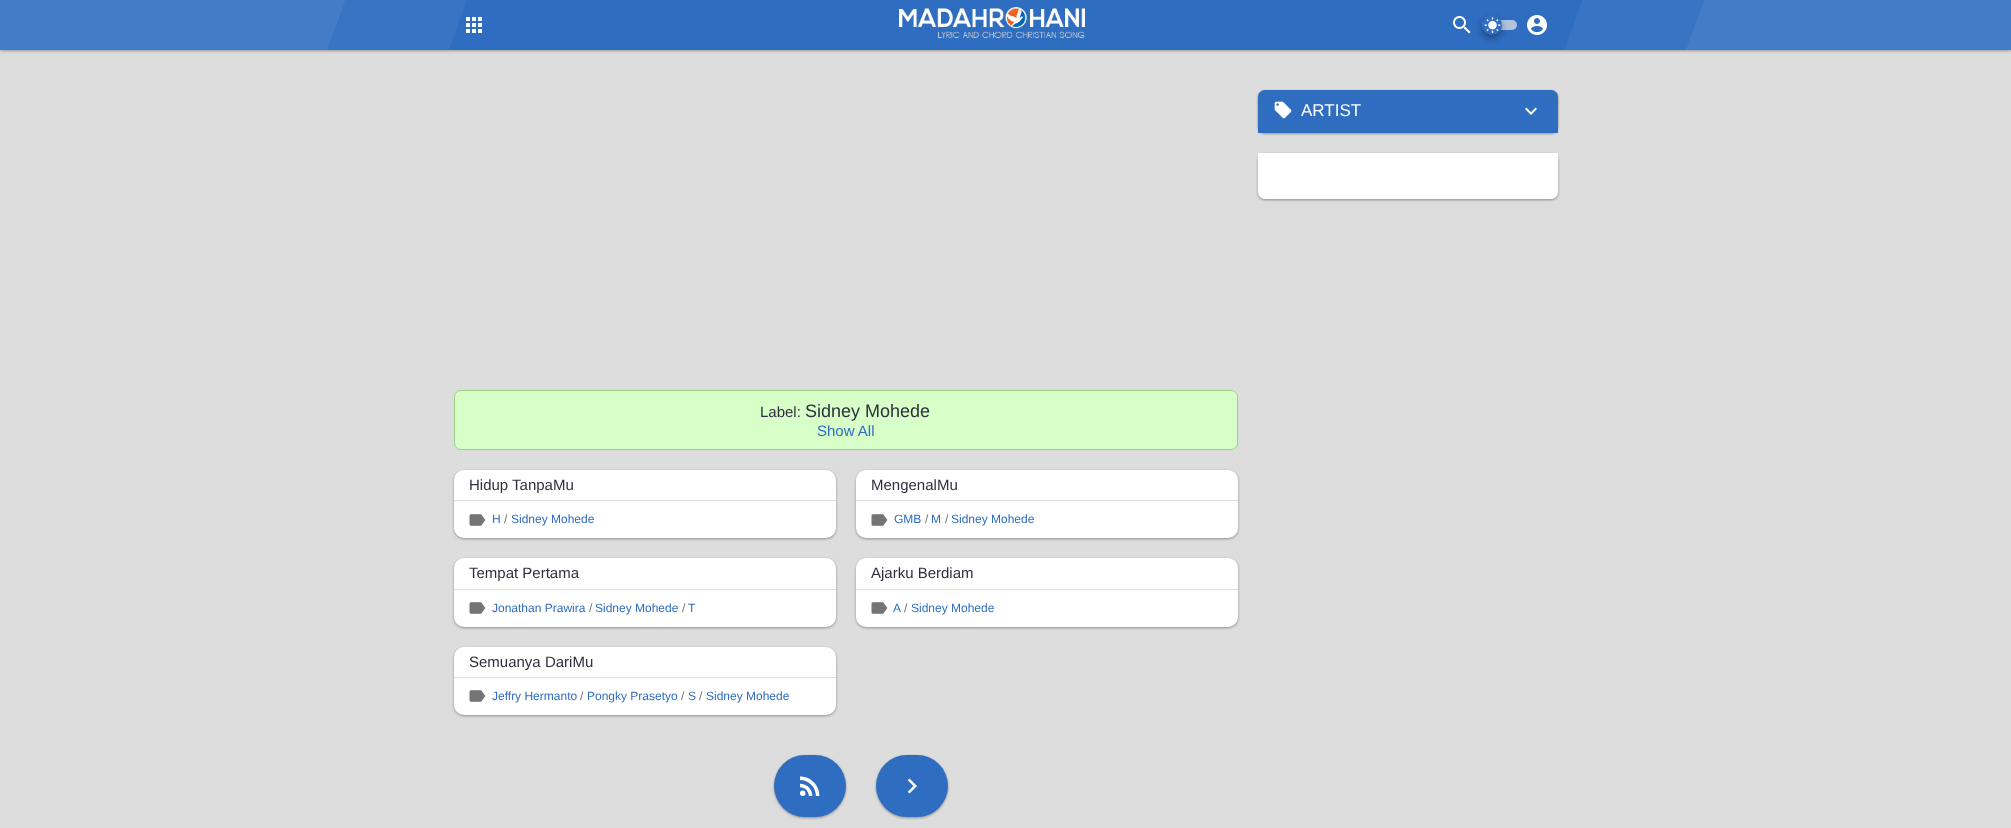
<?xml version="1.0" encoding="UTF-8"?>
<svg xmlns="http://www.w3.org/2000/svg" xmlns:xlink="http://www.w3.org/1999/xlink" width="2011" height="828">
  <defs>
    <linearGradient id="g1" gradientUnits="userSpaceOnUse" x1="110" y1="-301" x2="1901" y2="351"><stop offset="0.16" stop-color="#447cc7" /><stop offset="0.17" stop-color="#447cc7" /><stop offset="0.17" stop-color="#3974c4" /><stop offset="0.23" stop-color="#3974c4" /><stop offset="0.23" stop-color="#2f6dc1" /><stop offset="0.78" stop-color="#2f6dc1" /><stop offset="0.78" stop-color="#3974c4" /><stop offset="0.84" stop-color="#3974c4" /><stop offset="0.84" stop-color="#447cc7" /><stop offset="1" stop-color="#447cc7" /></linearGradient>
  </defs>
  <rect width="100%" height="100%" fill="#dddddd" />
  <rect y="1" width="2011" height="50" fill="#000000" fill-opacity="0.3" filter="blur(1.5px)" />
  <rect width="2011" height="50" fill="url(#g1)" />
  <image x="466" y="17" width="16" height="16" xlink:href="image1.png" />
  <image x="899" y="7" width="186" height="32" xlink:href="image2.png" />
  <image x="1453" y="16" width="18" height="18" xlink:href="image3.png" />
  <rect x="1482" y="20" width="35" height="10" rx="5" fill="#b0c4de" />
  <rect x="1482" y="18" width="20" height="20" rx="10" fill="#000000" fill-opacity="0.23" filter="blur(3px)" />
  <rect x="1482" y="18" width="20" height="20" rx="10" fill="#000000" fill-opacity="0.16" filter="blur(3px)" />
  <circle cx="1492" cy="25" r="10" fill="#2f6dc1" />
  <image x="1484" y="17" width="17" height="16" xlink:href="image4.png" />
  <image x="1527" y="15" width="20" height="20" xlink:href="image5.png" />
  <rect x="1258" y="91" width="300" height="43" rx="7" fill="#000000" fill-opacity="0.24" filter="blur(1px)" />
  <rect x="1258" y="91" width="300" height="43" rx="7" fill="#000000" fill-opacity="0.12" filter="blur(1.5px)" />
  <path d="M 1265 90 h 286 c 4 0 7 3 7 7 v 36 h -300 v -36 c 0 -4 3 -7 7 -7 z" fill="#2f6dc1" />
  <image x="1274" y="101" width="18" height="18" xlink:href="image6.png" />
  <image x="1525" y="107" width="12" height="8" xlink:href="image7.png" />
  <rect x="1258" y="154" width="300" height="46" rx="7" fill="#000000" fill-opacity="0.24" filter="blur(1px)" />
  <rect x="1258" y="154" width="300" height="46" rx="7" fill="#000000" fill-opacity="0.12" filter="blur(1.5px)" />
  <rect x="1258" y="153" width="300" height="46" rx="7" fill="#ffffff" />
  <path d="M 1258 153 h 300 v 36 c 0 5.5 -4.5 10 -10 10 h -280 c -5.5 0 -10 -4.5 -10 -10 z" fill="#ffffff" />
  <rect x="454.5" y="390.5" width="783" height="59" rx="6.5" fill="#d9ffc9" stroke="#9bd084" />
  <rect x="454" y="471" width="382" height="68" rx="10" fill="#000000" fill-opacity="0.24" filter="blur(1px)" />
  <rect x="454" y="471" width="382" height="68" rx="10" fill="#000000" fill-opacity="0.12" filter="blur(1.5px)" />
  <rect x="454" y="470" width="382" height="68" rx="10" fill="#ffffff" />
  <rect x="454" y="500" width="382" height="1" fill="#dddddd" />
  <image x="469" y="514" width="17" height="12" xlink:href="image8.png" />
  <rect x="856" y="471" width="382" height="68" rx="10" fill="#000000" fill-opacity="0.24" filter="blur(1px)" />
  <rect x="856" y="471" width="382" height="68" rx="10" fill="#000000" fill-opacity="0.12" filter="blur(1.5px)" />
  <rect x="856" y="470" width="382" height="68" rx="10" fill="#ffffff" />
  <rect x="856" y="500" width="382" height="1" fill="#dddddd" />
  <image x="871" y="514" width="17" height="12" xlink:href="image8.png" />
  <rect x="454" y="559" width="382" height="69" rx="10" fill="#000000" fill-opacity="0.24" filter="blur(1px)" />
  <rect x="454" y="559" width="382" height="69" rx="10" fill="#000000" fill-opacity="0.12" filter="blur(1.5px)" />
  <rect x="454" y="558" width="382" height="69" rx="10" fill="#ffffff" />
  <rect x="454" y="589" width="382" height="1" fill="#dddddd" />
  <image x="469" y="602" width="17" height="12" xlink:href="image8.png" />
  <rect x="856" y="559" width="382" height="69" rx="10" fill="#000000" fill-opacity="0.24" filter="blur(1px)" />
  <rect x="856" y="559" width="382" height="69" rx="10" fill="#000000" fill-opacity="0.12" filter="blur(1.5px)" />
  <rect x="856" y="558" width="382" height="69" rx="10" fill="#ffffff" />
  <rect x="856" y="589" width="382" height="1" fill="#dddddd" />
  <image x="871" y="602" width="17" height="12" xlink:href="image8.png" />
  <rect x="454" y="648" width="382" height="68" rx="10" fill="#000000" fill-opacity="0.24" filter="blur(1px)" />
  <rect x="454" y="648" width="382" height="68" rx="10" fill="#000000" fill-opacity="0.12" filter="blur(1.5px)" />
  <rect x="454" y="647" width="382" height="68" rx="10" fill="#ffffff" />
  <rect x="454" y="677" width="382" height="1" fill="#dddddd" />
  <image x="469" y="690" width="17" height="12" xlink:href="image8.png" />
  <rect x="774" y="756" width="72" height="62" rx="31" fill="#000000" fill-opacity="0.24" filter="blur(1px)" />
  <rect x="774" y="756" width="72" height="62" rx="31" fill="#000000" fill-opacity="0.12" filter="blur(1.5px)" />
  <rect x="774" y="755" width="72" height="62" rx="31" fill="#2f6dc1" />
  <image x="800" y="776" width="20" height="20" xlink:href="image9.png" />
  <rect x="876" y="756" width="72" height="62" rx="31" fill="#000000" fill-opacity="0.24" filter="blur(1px)" />
  <rect x="876" y="756" width="72" height="62" rx="31" fill="#000000" fill-opacity="0.12" filter="blur(1.5px)" />
  <rect x="876" y="755" width="72" height="62" rx="31" fill="#2f6dc1" />
  <image x="907" y="778" width="10" height="16" xlink:href="image10.png" />
  <text x="1301" y="116" style="font-family: Liberation Sans; font-size: 17px; fill: #ffffff">ARTIST</text>
  <text x="760" y="417" style="font-family: Liberation Sans; font-size: 15px; fill: #2f303f">Label:</text>
  <text x="805" y="417" style="font-family: Liberation Sans; font-size: 18px; fill: #2f303f">Sidney Mohede</text>
  <text x="817" y="436" style="font-family: Liberation Sans; font-size: 15px; fill: #2f6dc1">Show All</text>
  <text x="469" y="490" style="font-family: Liberation Sans; font-size: 15px; fill: #2f303f">Hidup TanpaMu</text>
  <text x="492" y="523" style="font-family: Liberation Sans; font-size: 12px; fill: #2f6dc1">H</text>
  <text x="504" y="523" style="font-family: Liberation Sans; font-size: 12px; fill: #757575">/</text>
  <text x="511" y="523" style="font-family: Liberation Sans; font-size: 12px; fill: #2f6dc1">Sidney Mohede</text>
  <text x="871" y="490" style="font-family: Liberation Sans; font-size: 15px; fill: #2f303f">MengenalMu</text>
  <text x="894" y="523" style="font-family: Liberation Sans; font-size: 12px; fill: #2f6dc1">GMB</text>
  <text x="925" y="523" style="font-family: Liberation Sans; font-size: 12px; fill: #757575">/</text>
  <text x="931" y="523" style="font-family: Liberation Sans; font-size: 12px; fill: #2f6dc1">M</text>
  <text x="945" y="523" style="font-family: Liberation Sans; font-size: 12px; fill: #757575">/</text>
  <text x="951" y="523" style="font-family: Liberation Sans; font-size: 12px; fill: #2f6dc1">Sidney Mohede</text>
  <text x="469" y="578" style="font-family: Liberation Sans; font-size: 15px; fill: #2f303f">Tempat Pertama</text>
  <text x="492" y="612" style="font-family: Liberation Sans; font-size: 12px; fill: #2f6dc1">Jonathan Prawira</text>
  <text x="589" y="612" style="font-family: Liberation Sans; font-size: 12px; fill: #757575">/</text>
  <text x="595" y="612" style="font-family: Liberation Sans; font-size: 12px; fill: #2f6dc1">Sidney Mohede</text>
  <text x="682" y="612" style="font-family: Liberation Sans; font-size: 12px; fill: #757575">/</text>
  <text x="688" y="612" style="font-family: Liberation Sans; font-size: 12px; fill: #2f6dc1">T</text>
  <text x="871" y="578" style="font-family: Liberation Sans; font-size: 15px; fill: #2f303f">Ajarku Berdiam</text>
  <text x="893" y="612" style="font-family: Liberation Sans; font-size: 12px; fill: #2f6dc1">A</text>
  <text x="904" y="612" style="font-family: Liberation Sans; font-size: 12px; fill: #757575">/</text>
  <text x="911" y="612" style="font-family: Liberation Sans; font-size: 12px; fill: #2f6dc1">Sidney Mohede</text>
  <text x="469" y="667" style="font-family: Liberation Sans; font-size: 15px; fill: #2f303f">Semuanya DariMu</text>
  <text x="492" y="700" style="font-family: Liberation Sans; font-size: 12px; fill: #2f6dc1">Jeffry Hermanto</text>
  <text x="580" y="700" style="font-family: Liberation Sans; font-size: 12px; fill: #757575">/</text>
  <text x="587" y="700" style="font-family: Liberation Sans; font-size: 12px; fill: #2f6dc1">Pongky Prasetyo</text>
  <text x="681" y="700" style="font-family: Liberation Sans; font-size: 12px; fill: #757575">/</text>
  <text x="688" y="700" style="font-family: Liberation Sans; font-size: 12px; fill: #2f6dc1">S</text>
  <text x="699" y="700" style="font-family: Liberation Sans; font-size: 12px; fill: #757575">/</text>
  <text x="706" y="700" style="font-family: Liberation Sans; font-size: 12px; fill: #2f6dc1">Sidney Mohede</text>
</svg>
